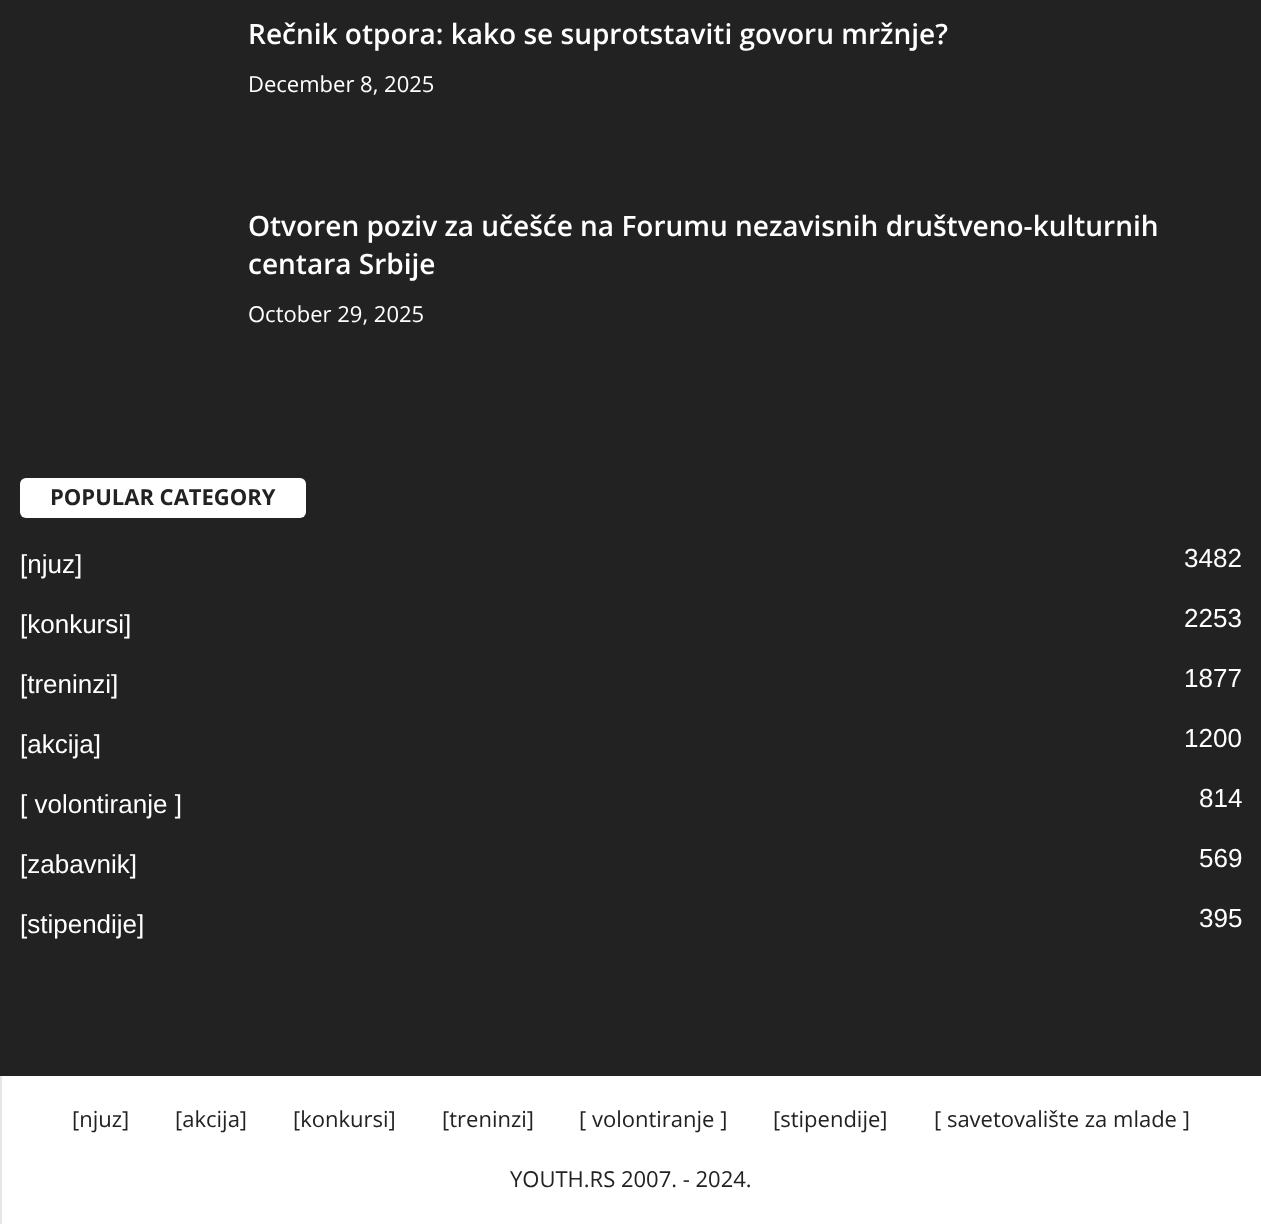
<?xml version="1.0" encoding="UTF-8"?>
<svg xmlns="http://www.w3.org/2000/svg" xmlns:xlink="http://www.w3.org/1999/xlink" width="1261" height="1224">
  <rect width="100%" height="100%" fill="#ffffff" />
  <rect width="1261" height="1076" fill="#222222" />
  <rect x="20" y="478" width="286" height="40" rx="6" fill="#ffffff" />
  <rect y="1076" width="2" height="148" fill="#e6e6e6" />
  <text x="248" y="44" style="font-family: Open Sans; font-size: 28px; font-weight: 600; fill: #ffffff">Rečnik otpora: kako se suprotstaviti govoru mržnje?</text>
  <text x="248" y="92" style="font-family: Open Sans; font-size: 22px; fill: #ffffff">December 8, 2025</text>
  <text x="248" y="236" style="font-family: Open Sans; font-size: 28px; font-weight: 600; fill: #ffffff">Otvoren poziv za učešće na Forumu nezavisnih društveno-kulturnih</text>
  <text x="248" y="274" style="font-family: Open Sans; font-size: 28px; font-weight: 600; fill: #ffffff">centara Srbije</text>
  <text x="248" y="322" style="font-family: Open Sans; font-size: 22px; fill: #ffffff">October 29, 2025</text>
  <text x="50" y="505" style="font-family: Open Sans; font-size: 22px; font-weight: bold; fill: #222222">POPULAR CATEGORY</text>
  <text x="20" y="573" style="font-family: Liberation Sans; font-size: 26px; fill: #ffffff">[njuz]</text>
  <text x="1184" y="567" style="font-family: Liberation Sans; font-size: 26px; fill: #ffffff">3482</text>
  <text x="20" y="633" style="font-family: Liberation Sans; font-size: 26px; fill: #ffffff">[konkursi]</text>
  <text x="1184" y="627" style="font-family: Liberation Sans; font-size: 26px; fill: #ffffff">2253</text>
  <text x="20" y="693" style="font-family: Liberation Sans; font-size: 26px; fill: #ffffff">[treninzi]</text>
  <text x="1184" y="687" style="font-family: Liberation Sans; font-size: 26px; fill: #ffffff">1877</text>
  <text x="20" y="753" style="font-family: Liberation Sans; font-size: 26px; fill: #ffffff">[akcija]</text>
  <text x="1184" y="747" style="font-family: Liberation Sans; font-size: 26px; fill: #ffffff">1200</text>
  <text x="20" y="813" style="font-family: Liberation Sans; font-size: 26px; fill: #ffffff">[ volontiranje ]</text>
  <text x="1199" y="807" style="font-family: Liberation Sans; font-size: 26px; fill: #ffffff">814</text>
  <text x="20" y="873" style="font-family: Liberation Sans; font-size: 26px; fill: #ffffff">[zabavnik]</text>
  <text x="1199" y="867" style="font-family: Liberation Sans; font-size: 26px; fill: #ffffff">569</text>
  <text x="20" y="933" style="font-family: Liberation Sans; font-size: 26px; fill: #ffffff">[stipendije]</text>
  <text x="1199" y="927" style="font-family: Liberation Sans; font-size: 26px; fill: #ffffff">395</text>
  <text x="72" y="1127" style="font-family: Open Sans; font-size: 22px; fill: #222222">[njuz]</text>
  <text x="175" y="1127" style="font-family: Open Sans; font-size: 22px; fill: #222222">[akcija]</text>
  <text x="293" y="1127" style="font-family: Open Sans; font-size: 22px; fill: #222222">[konkursi]</text>
  <text x="442" y="1127" style="font-family: Open Sans; font-size: 22px; fill: #222222">[treninzi]</text>
  <text x="579" y="1127" style="font-family: Open Sans; font-size: 22px; fill: #222222">[ volontiranje ]</text>
  <text x="773" y="1127" style="font-family: Open Sans; font-size: 22px; fill: #222222">[stipendije]</text>
  <text x="934" y="1127" style="font-family: Open Sans; font-size: 22px; fill: #222222">[ savetovalište za mlade ]</text>
  <text x="510" y="1187" style="font-family: Open Sans; font-size: 22px; fill: #222222">YOUTH.RS 2007. - 2024.</text>
</svg>
